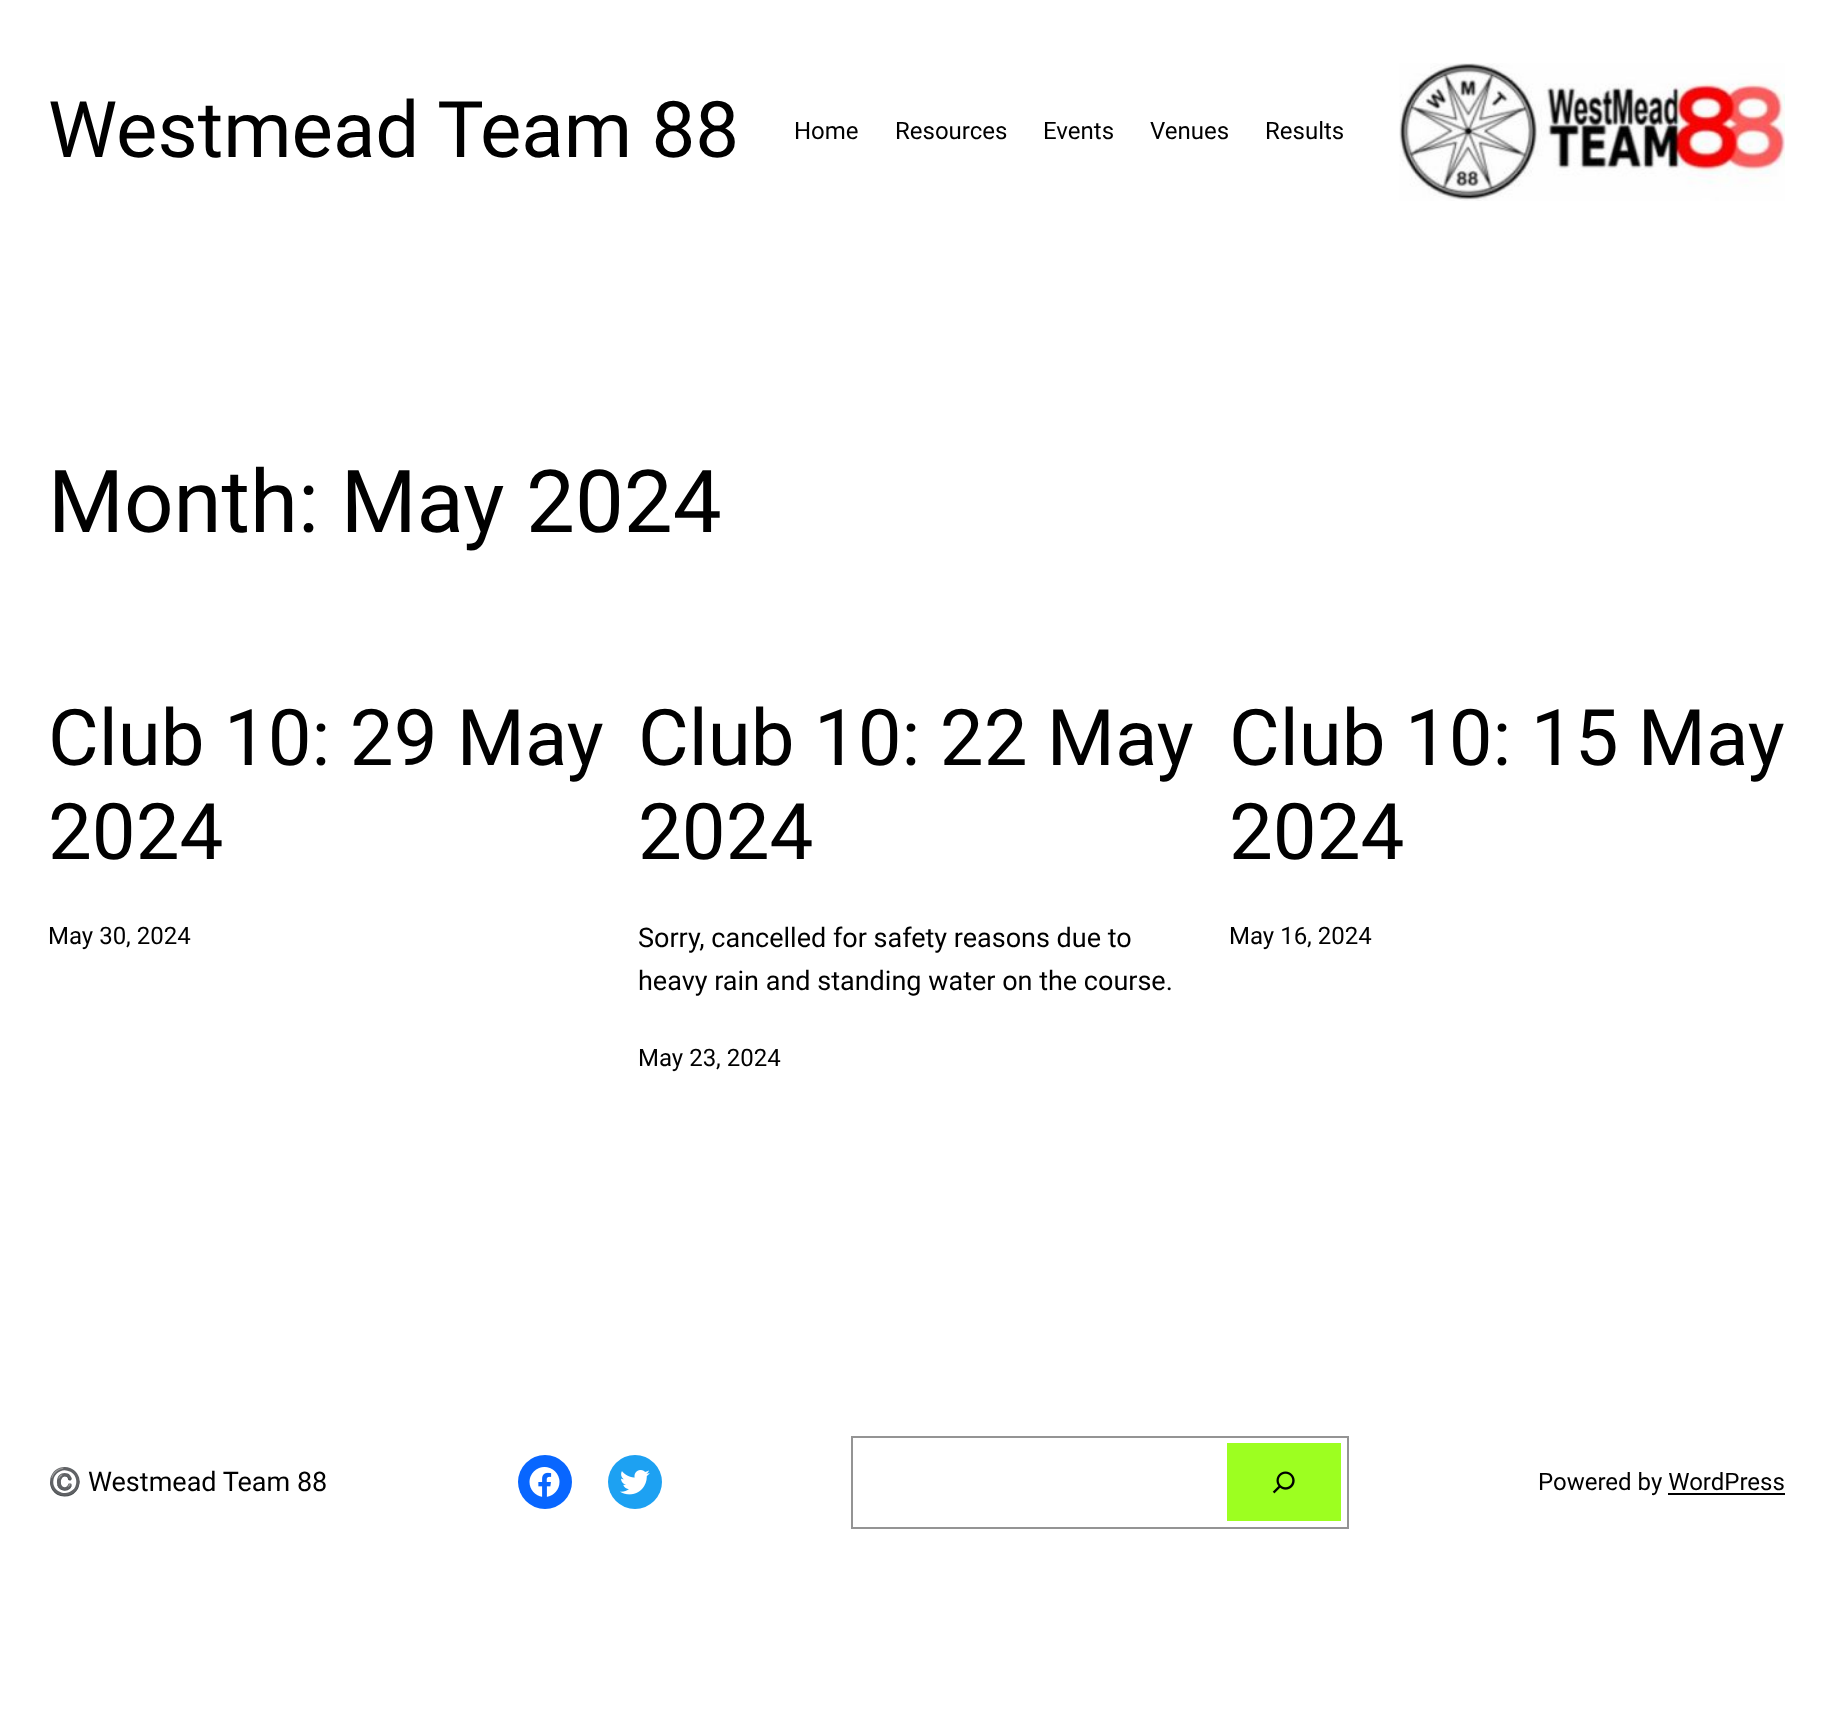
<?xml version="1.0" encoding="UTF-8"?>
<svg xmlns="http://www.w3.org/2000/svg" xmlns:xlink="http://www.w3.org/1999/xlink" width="1832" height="1731">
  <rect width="100%" height="100%" fill="#ffffff" />
  <image x="1399" y="63" width="386" height="138" xlink:href="image1.png" />
  <circle cx="545" cy="1482" r="27" fill="#0866ff" />
  <image x="529" y="1467" width="31" height="30" xlink:href="image2.png" />
  <circle cx="635" cy="1482" r="27" fill="#1da1f2" />
  <image x="620" y="1470" width="30" height="25" xlink:href="image3.png" />
  <rect x="852" y="1437" width="496" height="91" fill="none" stroke="#949494" stroke-width="2" />
  <rect x="1227" y="1443" width="114" height="78" fill="#9dff20" />
  <image x="1272" y="1471" width="23" height="23" xlink:href="image4.png" />
  <rect x="1668" y="1493" width="117" height="2" fill="#000000" />
  <text x="48" y="157" style="font-family: Roboto; font-size: 78px; fill: #000000">Westmead Team 88</text>
  <text x="794" y="139" style="font-family: Roboto; font-size: 24px; fill: #000000">Home</text>
  <text x="895" y="139" style="font-family: Roboto; font-size: 24px; fill: #000000">Resources</text>
  <text x="1043" y="139" style="font-family: Roboto; font-size: 24px; fill: #000000">Events</text>
  <text x="1150" y="139" style="font-family: Roboto; font-size: 24px; fill: #000000">Venues</text>
  <text x="1265" y="139" style="font-family: Roboto; font-size: 24px; fill: #000000">Results</text>
  <text x="48" y="532" style="font-family: Roboto; font-size: 87px; fill: #000000">Month: May 2024</text>
  <text x="48" y="765" style="font-family: Roboto; font-size: 78px; fill: #000000">Club 10: 29 May</text>
  <text x="48" y="859" style="font-family: Roboto; font-size: 78px; fill: #000000">2024</text>
  <text x="48" y="944" style="font-family: Roboto; font-size: 24px; fill: #000000">May 30, 2024</text>
  <text x="638" y="765" style="font-family: Roboto; font-size: 78px; fill: #000000">Club 10: 22 May</text>
  <text x="638" y="859" style="font-family: Roboto; font-size: 78px; fill: #000000">2024</text>
  <text x="638" y="947" style="font-family: Roboto; font-size: 27px; fill: #000000">Sorry, cancelled for safety reasons due to</text>
  <text x="638" y="990" style="font-family: Roboto; font-size: 27px; fill: #000000">heavy rain and standing water on the course.</text>
  <text x="638" y="1066" style="font-family: Roboto; font-size: 24px; fill: #000000">May 23, 2024</text>
  <text x="1229" y="765" style="font-family: Roboto; font-size: 78px; fill: #000000">Club 10: 15 May</text>
  <text x="1229" y="859" style="font-family: Roboto; font-size: 78px; fill: #000000">2024</text>
  <text x="1229" y="944" style="font-family: Roboto; font-size: 24px; fill: #000000">May 16, 2024</text>
  <text x="48" y="1491" style="font-family: Noto Color Emoji; font-size: 27px; fill: #000000">©️</text>
  <text x="88" y="1491" style="font-family: Roboto; font-size: 27px; fill: #000000">Westmead Team 88</text>
  <text x="1538" y="1490" style="font-family: Roboto; font-size: 24px; fill: #000000">Powered by WordPress</text>
</svg>
